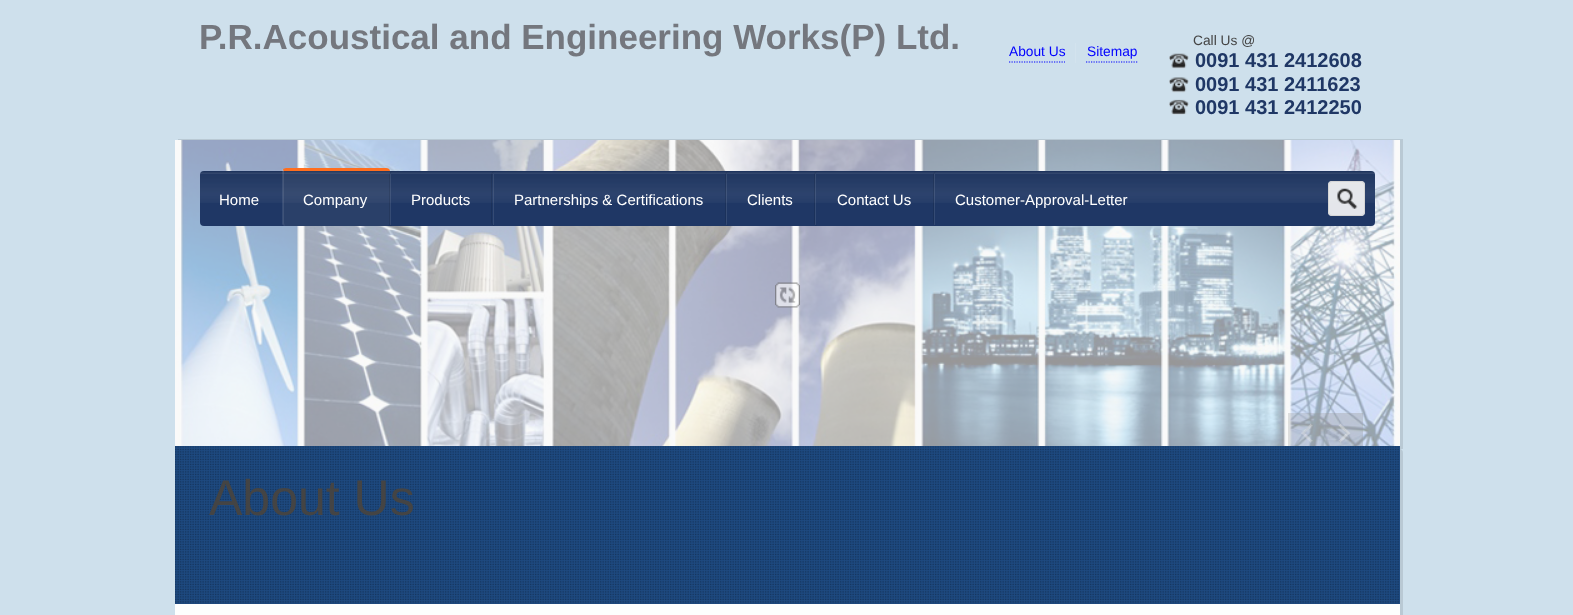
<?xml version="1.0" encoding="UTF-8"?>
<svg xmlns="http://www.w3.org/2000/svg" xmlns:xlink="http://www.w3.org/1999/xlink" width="1573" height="615">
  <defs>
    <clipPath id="clip1"><rect x="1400" y="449" width="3" height="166" /></clipPath>
  </defs>
  <rect width="100%" height="100%" fill="#cee0ec" />
  <path d="M 1009 62 h 56" fill="none" stroke="#0000ff" stroke-width="1.2" stroke-dasharray="1.25 1.25" />
  <rect x="1075" y="43" width="1" height="20" fill="#d3e3ee" />
  <path d="M 1086 62 h 51.5" fill="none" stroke="#0000ff" stroke-width="1.2" stroke-dasharray="1.25 1.25" />
  <image x="1169" y="53" width="20" height="16" xlink:href="image1.png" />
  <image x="1169" y="77" width="20" height="16" xlink:href="image2.png" />
  <image x="1169" y="99" width="20" height="16" xlink:href="image3.png" />
  <rect x="178" y="139" width="1225" height="310" fill="#000000" fill-opacity="0.1" filter="blur(0.5px)" />
  <image x="175" y="140" width="1225" height="306" xlink:href="image6.png" />
  <rect x="1288" y="413" width="37" height="33" fill="#000000" fill-opacity="0.28" />
  <image x="1301" y="423" width="12" height="20" xlink:href="image8.png" />
  <rect x="1325" y="413" width="38" height="33" fill="#000000" fill-opacity="0.35" />
  <image x="1338" y="423" width="13" height="21" xlink:href="image9.png" />
  <rect x="175" y="140" width="1225" height="306" fill="#f7f7f7" fill-opacity="0.61" />
  <rect x="200" y="171" width="1175" height="55" rx="4" fill="#1f3765" />
  <image x="200" y="171" width="1175" height="32" xlink:href="image4.png" />
  <rect x="283" y="168" width="107" height="58" rx="4" fill="#969696" fill-opacity="0.1" />
  <path d="M 286 168 h 100 c 2 0 4 1 4 3 h -106 v 1 l -1 -3 z" fill="#ff6e1e" />
  <path d="M 283 169 l 1 3 v 50 c 0 3 1 4 2 4 c -1 0 -3 0 -4 -2 v -55 z" fill="#ffffff" fill-opacity="0.1" />
  <path d="M 393 171 c -2 0 -4 2 -4 4 v 47 c 0 2 1 4 3 4 c -1 -1 -2 -2 -2 -4 v -47 c 0 -2 2 -4 4 -4 h 94 h -1 z" fill="#000000" fill-opacity="0.1" />
  <rect x="390" y="174" width="1" height="51" fill="#ffffff" fill-opacity="0.1" />
  <path d="M 495 171 c -2 0 -4 2 -4 4 v 47 c 0 2 2 4 4 4 c -2 -1 -3 -2 -3 -4 v -47 c 0 -2 2 -4 4 -4 h 226 h -1 z" fill="#000000" fill-opacity="0.1" />
  <rect x="493" y="174" width="1" height="51" fill="#ffffff" fill-opacity="0.1" />
  <path d="M 729 171 c -2 0 -4 2 -4 4 v 47 c 0 2 2 4 4 4 c -2 -1 -3 -2 -3 -4 v -47 c 0 -2 2 -4 4 -4 h 81 h -1 z" fill="#000000" fill-opacity="0.1" />
  <rect x="726" y="174" width="1" height="51" fill="#ffffff" fill-opacity="0.1" />
  <path d="M 818 171 c -2 0 -4 2 -4 4 v 47 c 0 2 1 4 3 4 c -1 -1 -2 -2 -2 -4 v -47 c 0 -2 2 -4 4 -4 h 111 h -1 z" fill="#000000" fill-opacity="0.1" />
  <rect x="815" y="174" width="1" height="51" fill="#ffffff" fill-opacity="0.1" />
  <path d="M 937 171 c -2 0 -4 2 -4 4 v 47 c 0 2 1 3 3 4 l -2 -2 v -50 c 1 -2 2 -3 4 -3 h 205 h -1 z" fill="#000000" fill-opacity="0.1" />
  <rect x="934" y="174" width="1" height="51" fill="#ffffff" fill-opacity="0.1" />
  <rect x="1328" y="181" width="37" height="35" rx="4" fill="#fafafa" fill-opacity="0.9" />
  <image x="1337" y="188" width="21" height="21" xlink:href="image5.png" />
  <path d="M 1332 184 h 31 l 0.5 0.5 c 0 -1 -1 -1.5 -2 -1.5 h -30 c -1.5 0 -2.5 1 -2.5 2.5 v 27 c 0 1 0.5 1.5 1 2 c -1 -1.5 0 -6 0 -8 v -11.5 c 0 -3 -1 -6 0 -9 c 0 -1 1 -2 2 -2 z" fill="#e8e8e8" />
  <rect x="1328.5" y="181.5" width="36" height="34" rx="3.5" fill="none" stroke="#d5d5d5" />
  <image x="775" y="282" width="25" height="26" xlink:href="image7.png" />
  <g clip-path="url(#clip1)">
    <rect x="178" y="449" width="1225" height="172" rx="4" fill="#000000" fill-opacity="0.1" filter="blur(0.5px)" />
  </g>
  <rect x="175" y="604" width="1225" height="11" fill="#ffffff" fill-opacity="0.95" />
  <rect x="175" y="446" width="1225" height="158" fill="#1e4a80" />
  <image x="175" y="446" width="1224" height="158" xlink:href="image10.png" />
  <text x="199" y="49" style="font-family: Arimo; font-size: 35px; font-weight: bold; fill: #74777e">P.R.Acoustical and Engineering Works(P) Ltd.</text>
  <text x="1009" y="56" style="font-family: Arimo; font-size: 13.75px; fill: #0000ff">About Us</text>
  <text x="1087" y="56" style="font-family: Arimo; font-size: 13.75px; fill: #0000ff">Sitemap</text>
  <text x="1193" y="45" style="font-family: Liberation Sans; font-size: 13.75px; fill: #444444">Call Us @</text>
  <text x="1195" y="67" style="font-family: Liberation Sans; font-size: 20px; font-weight: bold; fill: #1f3765">0091 431 2412608</text>
  <text x="1195" y="91" style="font-family: Liberation Sans; font-size: 20px; font-weight: bold; fill: #1f3765">0091 431 2411623</text>
  <text x="1195" y="114" style="font-family: Liberation Sans; font-size: 20px; font-weight: bold; fill: #1f3765">0091 431 2412250</text>
  <text x="219" y="205" style="font-family: Arimo; font-size: 15px; fill: #ffffff">Home</text>
  <text x="303" y="205" style="font-family: Arimo; font-size: 15px; fill: #ffffff">Company</text>
  <text x="411" y="205" style="font-family: Arimo; font-size: 15px; fill: #ffffff">Products</text>
  <text x="514" y="205" style="font-family: Arimo; font-size: 15px; fill: #ffffff">Partnerships &amp; Certifications</text>
  <text x="747" y="205" style="font-family: Arimo; font-size: 15px; fill: #ffffff">Clients</text>
  <text x="837" y="205" style="font-family: Arimo; font-size: 15px; fill: #ffffff">Contact Us</text>
  <text x="955" y="205" style="font-family: Arimo; font-size: 15px; fill: #ffffff">Customer-Approval-Letter</text>
  <text x="209" y="515" style="font-family: Liberation Sans; font-size: 50px; fill: #444444">About Us</text>
</svg>
